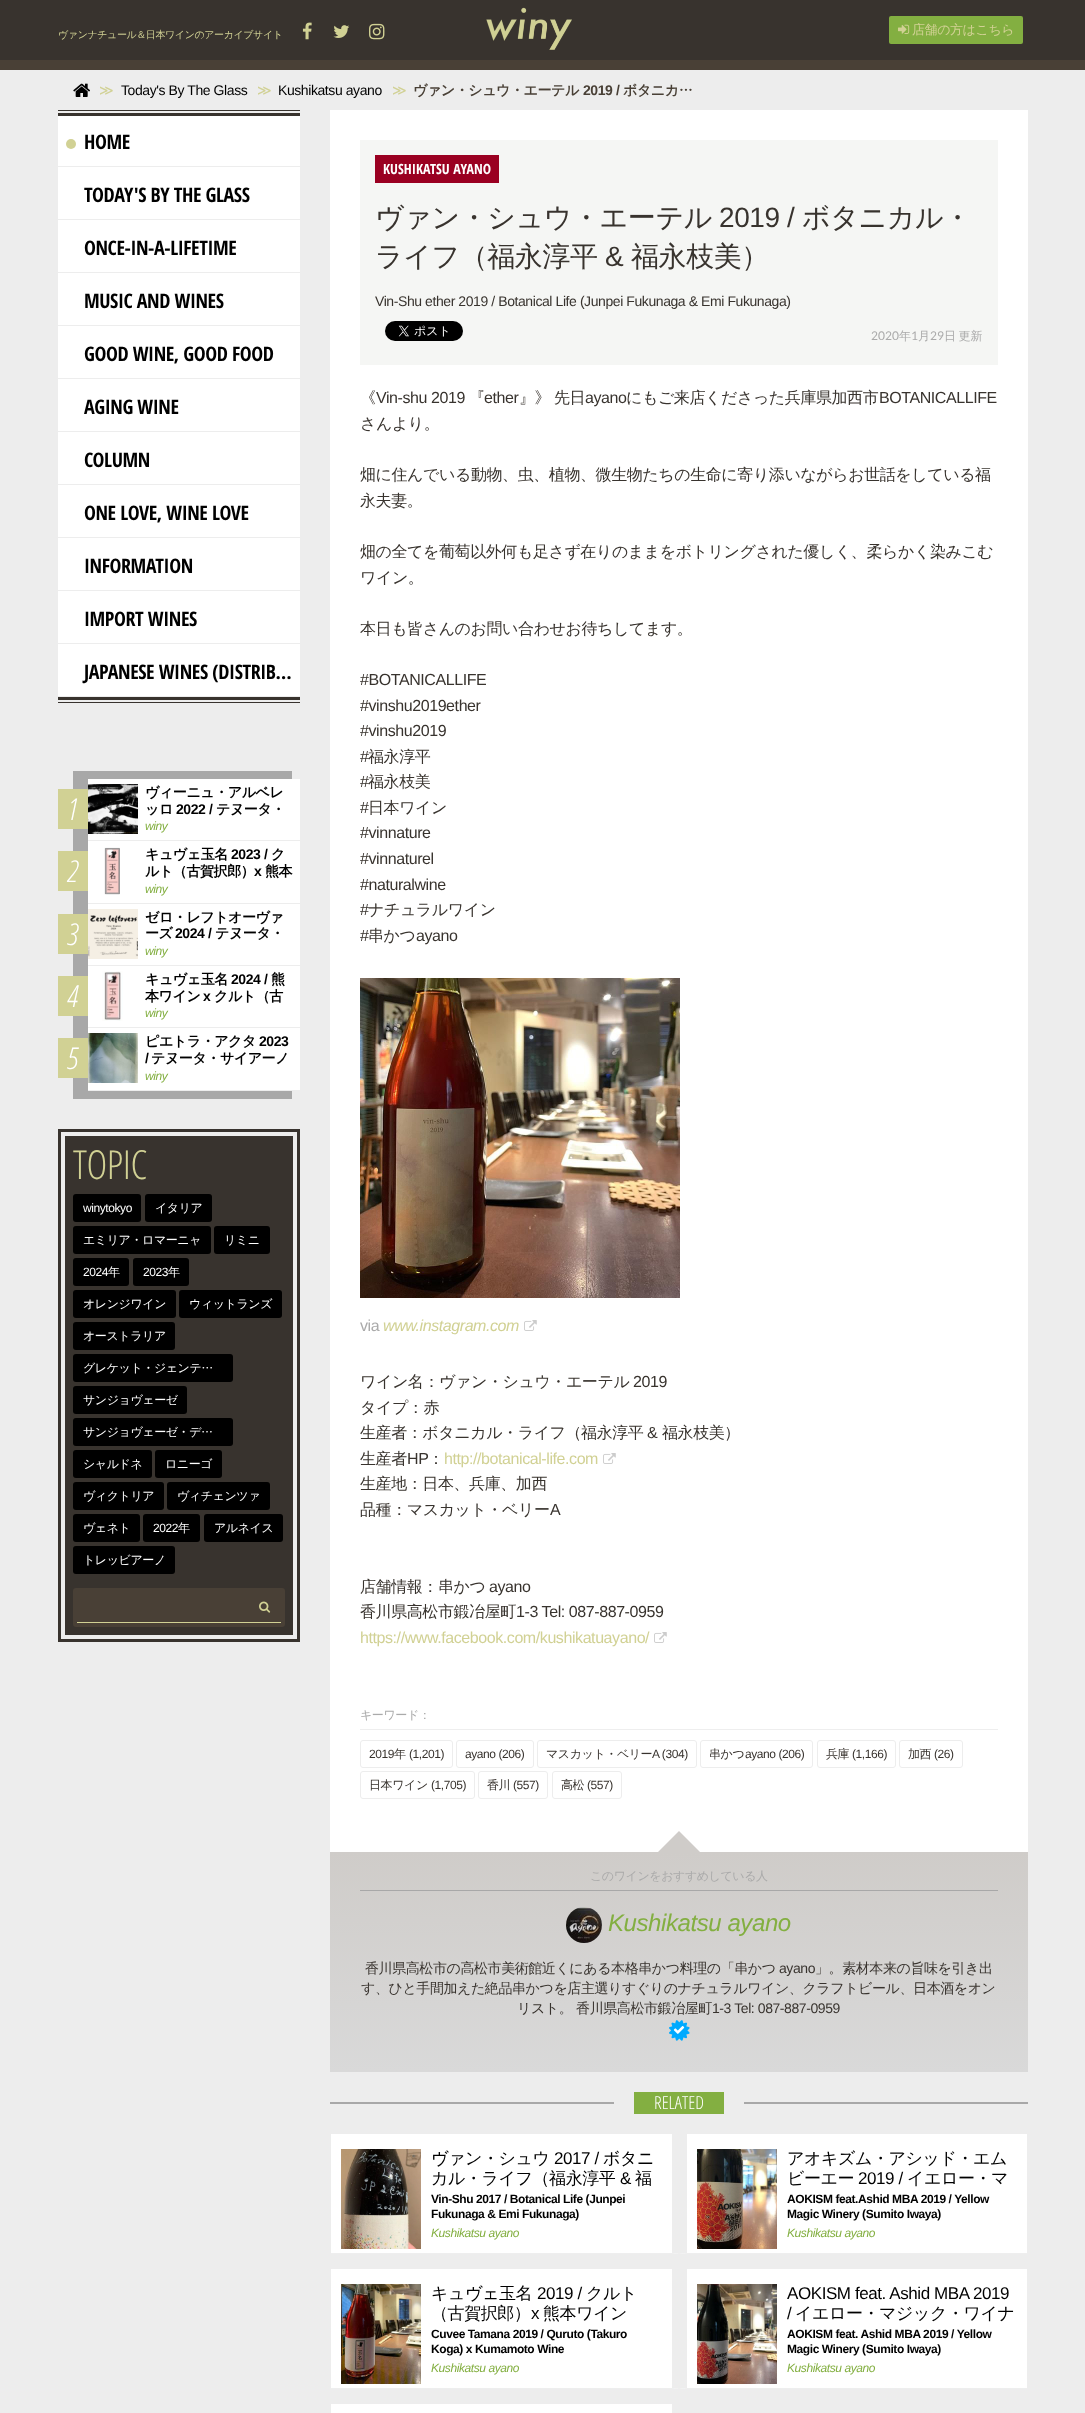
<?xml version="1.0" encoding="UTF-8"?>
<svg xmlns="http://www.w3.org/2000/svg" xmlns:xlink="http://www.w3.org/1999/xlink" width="1085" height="2413">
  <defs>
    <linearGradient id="g1" gradientUnits="userSpaceOnUse" x1="679" y1="1852" x2="679" y2="2072"><stop offset="0" stop-color="#cfccc9" /><stop offset="1" stop-color="#d9d9d9" /></linearGradient>
  </defs>
  <rect width="100%" height="100%" fill="#ededed" />
  <rect width="1085" height="60" fill="#38332e" />
  <rect y="60" width="1085" height="10" fill="#494036" />
  <image x="486" y="7" width="86" height="43" xlink:href="image1.png" />
  <image x="302" y="22" width="10" height="18" xlink:href="image2.png" />
  <image x="333" y="25" width="17" height="13" xlink:href="image3.png" />
  <image x="369" y="23" width="16" height="17" xlink:href="image4.png" />
  <rect x="889" y="16" width="134" height="28" rx="2" fill="#83af41" />
  <image x="898" y="24" width="12" height="10" xlink:href="image5.png" />
  <image x="73" y="83" width="17" height="14" xlink:href="image6.png" />
  <rect x="58" y="110" width="242" height="1" fill="#38332e" />
  <rect x="58" y="702" width="242" height="1" fill="#38332e" />
  <rect x="58" y="116" width="242" height="580" fill="#ffffff" />
  <rect x="58" y="113" width="242" height="3" fill="#38332e" />
  <rect x="58" y="697" width="242" height="3" fill="#38332e" />
  <rect x="58" y="166" width="242" height="1" fill="#ededed" />
  <circle cx="71" cy="144" r="5" fill="#d1d194" />
  <rect x="58" y="219" width="242" height="1" fill="#ededed" />
  <rect x="58" y="272" width="242" height="1" fill="#ededed" />
  <rect x="58" y="325" width="242" height="1" fill="#ededed" />
  <rect x="58" y="378" width="242" height="1" fill="#ededed" />
  <rect x="58" y="431" width="242" height="1" fill="#ededed" />
  <rect x="58" y="484" width="242" height="1" fill="#ededed" />
  <rect x="58" y="537" width="242" height="1" fill="#ededed" />
  <rect x="58" y="590" width="242" height="1" fill="#ededed" />
  <rect x="58" y="643" width="242" height="1" fill="#ededed" />
  <rect x="73" y="771" width="219" height="328" fill="#a8a8a8" />
  <rect x="88" y="779" width="212" height="61" fill="#ffffff" />
  <rect x="88" y="840" width="212" height="1" fill="#ededed" />
  <rect x="58" y="789" width="30" height="40" fill="#d1d194" />
  <image x="88" y="784" width="50" height="50" xlink:href="image7.png" />
  <rect x="88" y="841" width="212" height="62" fill="#ffffff" />
  <rect x="88" y="903" width="212" height="1" fill="#ededed" />
  <rect x="58" y="851" width="30" height="40" fill="#d1d194" />
  <image x="104" y="847" width="16" height="48" xlink:href="image8.png" />
  <rect x="88" y="904" width="212" height="61" fill="#ffffff" />
  <rect x="88" y="965" width="212" height="1" fill="#ededed" />
  <rect x="58" y="914" width="30" height="40" fill="#d1d194" />
  <image x="88" y="909" width="50" height="50" xlink:href="image9.png" />
  <rect x="88" y="966" width="212" height="61" fill="#ffffff" />
  <rect x="88" y="1027" width="212" height="1" fill="#ededed" />
  <rect x="58" y="976" width="30" height="40" fill="#d1d194" />
  <image x="102" y="971" width="21" height="50" xlink:href="image10.png" />
  <rect x="88" y="1028" width="212" height="62" fill="#ffffff" />
  <rect x="88" y="1090" width="212" height="1" fill="#ededed" />
  <rect x="58" y="1038" width="30" height="40" fill="#d1d194" />
  <image x="88" y="1033" width="50" height="50" xlink:href="image11.png" />
  <rect x="59.5" y="1130.5" width="239" height="510" fill="none" stroke="#38332e" stroke-width="3" />
  <rect x="65" y="1136" width="228" height="499" fill="#38332e" />
  <rect x="73" y="1194" width="68" height="28" rx="3" fill="#000000" />
  <rect x="145" y="1194" width="67" height="28" rx="3" fill="#000000" />
  <rect x="73" y="1226" width="138" height="28" rx="3" fill="#000000" />
  <rect x="214" y="1226" width="56" height="28" rx="3" fill="#000000" />
  <rect x="73" y="1258" width="56" height="28" rx="3" fill="#000000" />
  <rect x="133" y="1258" width="56" height="28" rx="3" fill="#000000" />
  <rect x="73" y="1290" width="103" height="28" rx="3" fill="#000000" />
  <rect x="179" y="1290" width="103" height="28" rx="3" fill="#000000" />
  <rect x="73" y="1322" width="102" height="28" rx="3" fill="#000000" />
  <rect x="73" y="1354" width="160" height="28" rx="3" fill="#000000" />
  <rect x="73" y="1386" width="114" height="28" rx="3" fill="#000000" />
  <rect x="73" y="1418" width="160" height="28" rx="3" fill="#000000" />
  <rect x="73" y="1450" width="79" height="28" rx="3" fill="#000000" />
  <rect x="155" y="1450" width="67" height="28" rx="3" fill="#000000" />
  <rect x="73" y="1482" width="91" height="28" rx="3" fill="#000000" />
  <rect x="167" y="1482" width="103" height="28" rx="3" fill="#000000" />
  <rect x="73" y="1514" width="67" height="28" rx="3" fill="#000000" />
  <rect x="143" y="1514" width="57" height="28" rx="3" fill="#000000" />
  <rect x="204" y="1514" width="79" height="28" rx="3" fill="#000000" />
  <rect x="73" y="1546" width="102" height="28" rx="3" fill="#000000" />
  <rect x="73" y="1588" width="212" height="39" rx="3" fill="#494036" />
  <rect x="77" y="1622" width="204" height="1" fill="#d1d194" />
  <image x="259" y="1601" width="12" height="12" xlink:href="image12.png" />
  <rect x="330" y="110" width="698" height="1742" fill="#ffffff" />
  <rect x="360" y="140" width="638" height="225" fill="#f5f6f4" />
  <rect x="375" y="155" width="124" height="28" fill="#9a0021" />
  <image x="385" y="321" width="78" height="20" xlink:href="image13.png" />
  <image x="360" y="978" width="320" height="320" xlink:href="image14.png" />
  <image x="524" y="1320" width="13" height="11" xlink:href="image15.png" />
  <image x="603" y="1453" width="13" height="11" xlink:href="image15.png" />
  <image x="654" y="1632" width="13" height="11" xlink:href="image15.png" />
  <rect x="360" y="1729" width="638" height="1" fill="#eeeeee" />
  <rect x="360.5" y="1740.5" width="92" height="27" rx="2.5" fill="none" stroke="#ededed" />
  <rect x="456.5" y="1740.5" width="77" height="27" rx="2.5" fill="none" stroke="#ededed" />
  <rect x="537.5" y="1740.5" width="159" height="27" rx="2.5" fill="none" stroke="#ededed" />
  <rect x="700.5" y="1740.5" width="112" height="27" rx="2.5" fill="none" stroke="#ededed" />
  <rect x="817.5" y="1740.5" width="78" height="27" rx="2.5" fill="none" stroke="#ededed" />
  <rect x="899.5" y="1740.5" width="63" height="27" rx="2.5" fill="none" stroke="#ededed" />
  <rect x="360.5" y="1771.5" width="114" height="27" rx="2.5" fill="none" stroke="#ededed" />
  <rect x="478.5" y="1771.5" width="69" height="27" rx="2.5" fill="none" stroke="#ededed" />
  <rect x="552.5" y="1771.5" width="69" height="27" rx="2.5" fill="none" stroke="#ededed" />
  <rect x="330" y="1852" width="698" height="220" fill="url(#g1)" />
  <path d="M 679 1831 l 21 21 h -42 z" fill="#cfccc9" />
  <rect x="360" y="1890" width="638" height="1" fill="#a8a8a8" />
  <image x="566" y="1907" width="36" height="36" xlink:href="image16.png" />
  <image x="669" y="2020" width="21" height="21" xlink:href="image17.png" />
  <image x="673" y="2026" width="12" height="8" xlink:href="image18.png" />
  <rect x="330" y="2102" width="698" height="2" fill="#a8a8a8" />
  <rect x="634" y="2092" width="90" height="22" fill="#83af41" />
  <rect x="724" y="2102" width="20" height="2" fill="#ededed" />
  <rect x="614" y="2102" width="20" height="2" fill="#ededed" />
  <rect x="331" y="2134" width="696" height="120" fill="#ffffff" />
  <path d="M 679 2134 v 120 l -7 -1 v -119 z" fill="#ededed" />
  <path d="M 679 2254 h -348 v -1 h 341 z" fill="#eeeeee" />
  <image x="341" y="2149" width="80" height="100" xlink:href="image19.png" />
  <path d="M 1027 2254 h -348 l 8 -1 h 340 z" fill="#eeeeee" />
  <path d="M 679 2254 v -120 h 8 v 119 z" fill="#ededed" />
  <image x="697" y="2149" width="80" height="100" xlink:href="image20.png" />
  <rect x="331" y="2269" width="696" height="120" fill="#ffffff" />
  <path d="M 679 2269 v 120 l -7 -1 v -119 z" fill="#ededed" />
  <path d="M 679 2389 h -348 v -1 h 341 z" fill="#eeeeee" />
  <image x="341" y="2284" width="80" height="100" xlink:href="image21.png" />
  <path d="M 1027 2389 h -348 l 8 -1 h 340 z" fill="#eeeeee" />
  <path d="M 679 2389 v -120 h 8 v 119 z" fill="#ededed" />
  <image x="697" y="2284" width="80" height="100" xlink:href="image22.png" />
  <rect x="331" y="2404" width="341" height="9" fill="#ffffff" />
  <text x="58" y="38" style="font-family: WenQuanYi Zen Hei; font-size: 10px; font-weight: 500; letter-spacing: -0.42px; fill: #d1d194">ヴァンナチュール＆日本ワインのアーカイブサイト</text>
  <text x="912" y="34" style="font-family: WenQuanYi Zen Hei; font-size: 13px; font-weight: 500; letter-spacing: -0.42px; fill: #d1d194">店舗の方はこちら</text>
  <text x="99" y="95" style="font-family: DejaVu Sans; font-size: 14px; letter-spacing: -0.42px; fill: #d1d194">≫</text>
  <text x="121" y="95" style="font-family: Liberation Sans; font-size: 14px; letter-spacing: -0.42px; fill: #000000">Today's By The Glass</text>
  <text x="257" y="95" style="font-family: DejaVu Sans; font-size: 14px; letter-spacing: -0.42px; fill: #d1d194">≫</text>
  <text x="278" y="95" style="font-family: Liberation Sans; font-size: 14px; letter-spacing: -0.42px; fill: #000000">Kushikatsu ayano</text>
  <text x="392" y="95" style="font-family: DejaVu Sans; font-size: 14px; letter-spacing: -0.42px; fill: #d1d194">≫</text>
  <text x="413" y="95" style="font-family: WenQuanYi Zen Hei; font-size: 14px; font-weight: bold; letter-spacing: -0.42px; fill: #494036">ヴァン・シュウ・エーテル</text>
  <text x="583" y="95" style="font-family: Liberation Sans; font-size: 14px; font-weight: bold; letter-spacing: -0.42px; fill: #494036">2019 /</text>
  <text x="623" y="95" style="font-family: WenQuanYi Zen Hei; font-size: 14px; font-weight: bold; letter-spacing: -0.42px; fill: #494036">ボタニカ…</text>
  <text x="84" y="149" style="font-family: Open Sans Condensed; font-size: 20px; font-weight: bold; letter-spacing: -0.42px; fill: #000000">HOME</text>
  <text x="84" y="202" style="font-family: Open Sans Condensed; font-size: 20px; font-weight: bold; letter-spacing: -0.42px; fill: #000000">TODAY'S BY THE GLASS</text>
  <text x="84" y="255" style="font-family: Open Sans Condensed; font-size: 20px; font-weight: bold; letter-spacing: -0.42px; fill: #000000">ONCE-IN-A-LIFETIME</text>
  <text x="84" y="308" style="font-family: Open Sans Condensed; font-size: 20px; font-weight: bold; letter-spacing: -0.42px; fill: #000000">MUSIC AND WINES</text>
  <text x="84" y="361" style="font-family: Open Sans Condensed; font-size: 20px; font-weight: bold; letter-spacing: -0.42px; fill: #000000">GOOD WINE, GOOD FOOD</text>
  <text x="84" y="414" style="font-family: Open Sans Condensed; font-size: 20px; font-weight: bold; letter-spacing: -0.42px; fill: #000000">AGING WINE</text>
  <text x="84" y="467" style="font-family: Open Sans Condensed; font-size: 20px; font-weight: bold; letter-spacing: -0.42px; fill: #000000">COLUMN</text>
  <text x="84" y="520" style="font-family: Open Sans Condensed; font-size: 20px; font-weight: bold; letter-spacing: -0.42px; fill: #000000">ONE LOVE, WINE LOVE</text>
  <text x="84" y="573" style="font-family: Open Sans Condensed; font-size: 20px; font-weight: bold; letter-spacing: -0.42px; fill: #000000">INFORMATION</text>
  <text x="84" y="626" style="font-family: Open Sans Condensed; font-size: 20px; font-weight: bold; letter-spacing: -0.42px; fill: #000000">IMPORT WINES</text>
  <text x="84" y="679" style="font-family: Open Sans Condensed; font-size: 20px; font-weight: bold; letter-spacing: -0.42px; fill: #000000">JAPANESE WINES (DISTRIB…</text>
  <text x="67" y="820" style="font-family: Open Sans Condensed; font-size: 30px; font-weight: 300; font-style: italic; letter-spacing: -0.42px; fill: #ffffff">1</text>
  <text x="145" y="797" style="font-family: WenQuanYi Zen Hei; font-size: 14px; font-weight: bold; letter-spacing: -0.42px; fill: #000000">ヴィーニュ・アルベレ</text>
  <text x="145" y="814" style="font-family: WenQuanYi Zen Hei; font-size: 14px; font-weight: bold; letter-spacing: -0.42px; fill: #000000">ッロ</text>
  <text x="176" y="814" style="font-family: Liberation Sans; font-size: 14px; font-weight: bold; letter-spacing: -0.42px; fill: #000000">2022 /</text>
  <text x="216" y="814" style="font-family: WenQuanYi Zen Hei; font-size: 14px; font-weight: bold; letter-spacing: -0.42px; fill: #000000">テヌータ・</text>
  <text x="145" y="830" style="font-family: Liberation Sans; font-size: 12px; font-style: italic; letter-spacing: -0.42px; fill: #83af41">winy</text>
  <text x="67" y="882" style="font-family: Open Sans Condensed; font-size: 30px; font-weight: 300; font-style: italic; letter-spacing: -0.42px; fill: #ffffff">2</text>
  <text x="145" y="859" style="font-family: WenQuanYi Zen Hei; font-size: 14px; font-weight: bold; letter-spacing: -0.42px; fill: #000000">キュヴェ玉名</text>
  <text x="231" y="859" style="font-family: Liberation Sans; font-size: 14px; font-weight: bold; letter-spacing: -0.42px; fill: #000000">2023 /</text>
  <text x="271" y="859" style="font-family: WenQuanYi Zen Hei; font-size: 14px; font-weight: bold; letter-spacing: -0.42px; fill: #000000">ク</text>
  <text x="145" y="876" style="font-family: WenQuanYi Zen Hei; font-size: 14px; font-weight: bold; letter-spacing: -0.42px; fill: #000000">ルト（古賀択郎）</text>
  <text x="254" y="876" style="font-family: Liberation Sans; font-size: 14px; font-weight: bold; letter-spacing: -0.42px; fill: #000000">x</text>
  <text x="265" y="876" style="font-family: WenQuanYi Zen Hei; font-size: 14px; font-weight: bold; letter-spacing: -0.42px; fill: #000000">熊本</text>
  <text x="145" y="893" style="font-family: Liberation Sans; font-size: 12px; font-style: italic; letter-spacing: -0.42px; fill: #83af41">winy</text>
  <text x="67" y="945" style="font-family: Open Sans Condensed; font-size: 30px; font-weight: 300; font-style: italic; letter-spacing: -0.42px; fill: #ffffff">3</text>
  <text x="145" y="922" style="font-family: WenQuanYi Zen Hei; font-size: 14px; font-weight: bold; letter-spacing: -0.42px; fill: #000000">ゼロ・レフトオーヴァ</text>
  <text x="145" y="938" style="font-family: WenQuanYi Zen Hei; font-size: 14px; font-weight: bold; letter-spacing: -0.42px; fill: #000000">ーズ</text>
  <text x="175" y="938" style="font-family: Liberation Sans; font-size: 14px; font-weight: bold; letter-spacing: -0.42px; fill: #000000">2024 /</text>
  <text x="215" y="938" style="font-family: WenQuanYi Zen Hei; font-size: 14px; font-weight: bold; letter-spacing: -0.42px; fill: #000000">テヌータ・</text>
  <text x="145" y="955" style="font-family: Liberation Sans; font-size: 12px; font-style: italic; letter-spacing: -0.42px; fill: #83af41">winy</text>
  <text x="67" y="1007" style="font-family: Open Sans Condensed; font-size: 30px; font-weight: 300; font-style: italic; letter-spacing: -0.42px; fill: #ffffff">4</text>
  <text x="145" y="984" style="font-family: WenQuanYi Zen Hei; font-size: 14px; font-weight: bold; letter-spacing: -0.42px; fill: #000000">キュヴェ玉名</text>
  <text x="231" y="984" style="font-family: Liberation Sans; font-size: 14px; font-weight: bold; letter-spacing: -0.42px; fill: #000000">2024 /</text>
  <text x="271" y="984" style="font-family: WenQuanYi Zen Hei; font-size: 14px; font-weight: bold; letter-spacing: -0.42px; fill: #000000">熊</text>
  <text x="145" y="1001" style="font-family: WenQuanYi Zen Hei; font-size: 14px; font-weight: bold; letter-spacing: -0.42px; fill: #000000">本ワイン</text>
  <text x="203" y="1001" style="font-family: Liberation Sans; font-size: 14px; font-weight: bold; letter-spacing: -0.42px; fill: #000000">x</text>
  <text x="214" y="1001" style="font-family: WenQuanYi Zen Hei; font-size: 14px; font-weight: bold; letter-spacing: -0.42px; fill: #000000">クルト（古</text>
  <text x="145" y="1017" style="font-family: Liberation Sans; font-size: 12px; font-style: italic; letter-spacing: -0.42px; fill: #83af41">winy</text>
  <text x="67" y="1069" style="font-family: Open Sans Condensed; font-size: 30px; font-weight: 300; font-style: italic; letter-spacing: -0.42px; fill: #ffffff">5</text>
  <text x="145" y="1046" style="font-family: WenQuanYi Zen Hei; font-size: 14px; font-weight: bold; letter-spacing: -0.42px; fill: #000000">ピエトラ・アクタ</text>
  <text x="259" y="1046" style="font-family: Liberation Sans; font-size: 14px; font-weight: bold; letter-spacing: -0.42px; fill: #000000">2023</text>
  <text x="145" y="1063" style="font-family: Liberation Sans; font-size: 14px; font-weight: bold; letter-spacing: -0.42px; fill: #000000">/</text>
  <text x="151" y="1063" style="font-family: WenQuanYi Zen Hei; font-size: 14px; font-weight: bold; letter-spacing: -0.42px; fill: #000000">テヌータ・サイアーノ</text>
  <text x="145" y="1080" style="font-family: Liberation Sans; font-size: 12px; font-style: italic; letter-spacing: -0.42px; fill: #83af41">winy</text>
  <text x="73" y="1179" style="font-family: Open Sans Condensed; font-size: 40px; font-weight: 300; letter-spacing: -0.42px; fill: #d1d194">TOPIC</text>
  <text x="83" y="1212" style="font-family: Liberation Sans; font-size: 12px; letter-spacing: -0.42px; fill: #ffffff">winytokyo</text>
  <text x="155" y="1212" style="font-family: WenQuanYi Zen Hei; font-size: 12px; font-weight: 500; letter-spacing: -0.42px; fill: #ffffff">イタリア</text>
  <text x="83" y="1244" style="font-family: WenQuanYi Zen Hei; font-size: 12px; font-weight: 500; letter-spacing: -0.42px; fill: #ffffff">エミリア・ロマーニャ</text>
  <text x="224" y="1244" style="font-family: WenQuanYi Zen Hei; font-size: 12px; font-weight: 500; letter-spacing: -0.42px; fill: #ffffff">リミニ</text>
  <text x="83" y="1276" style="font-family: Liberation Sans; font-size: 12px; letter-spacing: -0.42px; fill: #ffffff">2024</text>
  <text x="108" y="1276" style="font-family: WenQuanYi Zen Hei; font-size: 12px; font-weight: 500; letter-spacing: -0.42px; fill: #ffffff">年</text>
  <text x="143" y="1276" style="font-family: Liberation Sans; font-size: 12px; letter-spacing: -0.42px; fill: #ffffff">2023</text>
  <text x="168" y="1276" style="font-family: WenQuanYi Zen Hei; font-size: 12px; font-weight: 500; letter-spacing: -0.42px; fill: #ffffff">年</text>
  <text x="83" y="1308" style="font-family: WenQuanYi Zen Hei; font-size: 12px; font-weight: 500; letter-spacing: -0.42px; fill: #ffffff">オレンジワイン</text>
  <text x="189" y="1308" style="font-family: WenQuanYi Zen Hei; font-size: 12px; font-weight: 500; letter-spacing: -0.42px; fill: #ffffff">ウィットランズ</text>
  <text x="83" y="1340" style="font-family: WenQuanYi Zen Hei; font-size: 12px; font-weight: 500; letter-spacing: -0.42px; fill: #ffffff">オーストラリア</text>
  <text x="83" y="1372" style="font-family: WenQuanYi Zen Hei; font-size: 12px; font-weight: 500; letter-spacing: -0.42px; fill: #ffffff">グレケット・ジェンテ…</text>
  <text x="83" y="1404" style="font-family: WenQuanYi Zen Hei; font-size: 12px; font-weight: 500; letter-spacing: -0.42px; fill: #ffffff">サンジョヴェーゼ</text>
  <text x="83" y="1436" style="font-family: WenQuanYi Zen Hei; font-size: 12px; font-weight: 500; letter-spacing: -0.42px; fill: #ffffff">サンジョヴェーゼ・デ…</text>
  <text x="83" y="1468" style="font-family: WenQuanYi Zen Hei; font-size: 12px; font-weight: 500; letter-spacing: -0.42px; fill: #ffffff">シャルドネ</text>
  <text x="165" y="1468" style="font-family: WenQuanYi Zen Hei; font-size: 12px; font-weight: 500; letter-spacing: -0.42px; fill: #ffffff">ロニーゴ</text>
  <text x="83" y="1500" style="font-family: WenQuanYi Zen Hei; font-size: 12px; font-weight: 500; letter-spacing: -0.42px; fill: #ffffff">ヴィクトリア</text>
  <text x="177" y="1500" style="font-family: WenQuanYi Zen Hei; font-size: 12px; font-weight: 500; letter-spacing: -0.42px; fill: #ffffff">ヴィチェンツァ</text>
  <text x="83" y="1532" style="font-family: WenQuanYi Zen Hei; font-size: 12px; font-weight: 500; letter-spacing: -0.42px; fill: #ffffff">ヴェネト</text>
  <text x="153" y="1532" style="font-family: Liberation Sans; font-size: 12px; letter-spacing: -0.42px; fill: #ffffff">2022</text>
  <text x="178" y="1532" style="font-family: WenQuanYi Zen Hei; font-size: 12px; font-weight: 500; letter-spacing: -0.42px; fill: #ffffff">年</text>
  <text x="214" y="1532" style="font-family: WenQuanYi Zen Hei; font-size: 12px; font-weight: 500; letter-spacing: -0.42px; fill: #ffffff">アルネイス</text>
  <text x="83" y="1564" style="font-family: WenQuanYi Zen Hei; font-size: 12px; font-weight: 500; letter-spacing: -0.42px; fill: #ffffff">トレッビアーノ</text>
  <text x="383" y="174" style="font-family: Open Sans Condensed; font-size: 14px; font-weight: bold; fill: #ffffff">KUSHIKATSU AYANO</text>
  <text x="375" y="227" style="font-family: WenQuanYi Zen Hei; font-size: 28px; font-weight: 500; letter-spacing: -0.42px; fill: #38332e">ヴァン・シュウ・エーテル</text>
  <text x="719" y="227" style="font-family: Liberation Sans; font-size: 28px; letter-spacing: -0.42px; fill: #38332e">2019 /</text>
  <text x="802" y="227" style="font-family: WenQuanYi Zen Hei; font-size: 28px; font-weight: 500; letter-spacing: -0.42px; fill: #38332e">ボタニカル・</text>
  <text x="375" y="266" style="font-family: WenQuanYi Zen Hei; font-size: 28px; font-weight: 500; letter-spacing: -0.42px; fill: #38332e">ライフ（福永淳平</text>
  <text x="605" y="266" style="font-family: Liberation Sans; font-size: 28px; letter-spacing: -0.42px; fill: #38332e">&amp;</text>
  <text x="631" y="266" style="font-family: WenQuanYi Zen Hei; font-size: 28px; font-weight: 500; letter-spacing: -0.42px; fill: #38332e">福永枝美）</text>
  <text x="375" y="306" style="font-family: Liberation Sans; font-size: 14px; letter-spacing: -0.42px; fill: #38332e">Vin-Shu ether 2019 / Botanical Life (Junpei Fukunaga &amp; Emi Fukunaga)</text>
  <text x="871" y="340" style="font-family: Lato; font-size: 12px; fill: #aaaaaa">2020</text>
  <text x="899" y="340" style="font-family: WenQuanYi Zen Hei; font-size: 12px; font-weight: 500; fill: #aaaaaa">年</text>
  <text x="911" y="340" style="font-family: Lato; font-size: 12px; fill: #aaaaaa">1</text>
  <text x="918" y="340" style="font-family: WenQuanYi Zen Hei; font-size: 12px; font-weight: 500; fill: #aaaaaa">月</text>
  <text x="930" y="340" style="font-family: Lato; font-size: 12px; fill: #aaaaaa">29</text>
  <text x="944" y="340" word-spacing="-1" style="font-family: WenQuanYi Zen Hei; font-size: 12px; font-weight: 500; fill: #aaaaaa">日 更新</text>
  <text x="360" y="403" style="font-family: WenQuanYi Zen Hei; font-size: 16px; font-weight: 500; letter-spacing: -0.42px; fill: #38332e">《</text>
  <text x="376" y="403" style="font-family: Liberation Sans; font-size: 16px; letter-spacing: -0.42px; fill: #38332e">Vin-shu 2019</text>
  <text x="469" y="403" style="font-family: WenQuanYi Zen Hei; font-size: 16px; font-weight: 500; letter-spacing: -0.42px; fill: #38332e">『</text>
  <text x="484" y="403" style="font-family: Liberation Sans; font-size: 16px; letter-spacing: -0.42px; fill: #38332e">ether</text>
  <text x="519" y="403" style="font-family: WenQuanYi Zen Hei; font-size: 16px; font-weight: 500; letter-spacing: -0.42px; fill: #38332e">』》</text>
  <text x="554" y="403" style="font-family: WenQuanYi Zen Hei; font-size: 16px; font-weight: 500; letter-spacing: -0.42px; fill: #38332e">先日</text>
  <text x="585" y="403" style="font-family: Liberation Sans; font-size: 16px; letter-spacing: -0.42px; fill: #38332e">ayano</text>
  <text x="626" y="403" style="font-family: WenQuanYi Zen Hei; font-size: 16px; font-weight: 500; letter-spacing: -0.42px; fill: #38332e">にもご来店くださった兵庫県加西市</text>
  <text x="879" y="403" style="font-family: Liberation Sans; font-size: 16px; letter-spacing: -0.42px; fill: #38332e">BOTANICALLIFE</text>
  <text x="360" y="429" style="font-family: WenQuanYi Zen Hei; font-size: 16px; font-weight: 500; letter-spacing: -0.42px; fill: #38332e">さんより。</text>
  <text x="360" y="480" style="font-family: WenQuanYi Zen Hei; font-size: 16px; font-weight: 500; letter-spacing: -0.42px; fill: #38332e">畑に住んでいる動物、虫、植物、微生物たちの生命に寄り添いながらお世話をしている福</text>
  <text x="360" y="506" style="font-family: WenQuanYi Zen Hei; font-size: 16px; font-weight: 500; letter-spacing: -0.42px; fill: #38332e">永夫妻。</text>
  <text x="360" y="557" style="font-family: WenQuanYi Zen Hei; font-size: 16px; font-weight: 500; letter-spacing: -0.42px; fill: #38332e">畑の全てを葡萄以外何も足さず在りのままをボトリングされた優しく、柔らかく染みこむ</text>
  <text x="360" y="583" style="font-family: WenQuanYi Zen Hei; font-size: 16px; font-weight: 500; letter-spacing: -0.42px; fill: #38332e">ワイン。</text>
  <text x="360" y="634" style="font-family: WenQuanYi Zen Hei; font-size: 16px; font-weight: 500; letter-spacing: -0.42px; fill: #38332e">本日も皆さんのお問い合わせお待ちしてます。</text>
  <text x="360" y="685" style="font-family: Liberation Sans; font-size: 16px; letter-spacing: -0.42px; fill: #38332e">#BOTANICALLIFE</text>
  <text x="360" y="711" style="font-family: Liberation Sans; font-size: 16px; letter-spacing: -0.42px; fill: #38332e">#vinshu2019ether</text>
  <text x="360" y="736" style="font-family: Liberation Sans; font-size: 16px; letter-spacing: -0.42px; fill: #38332e">#vinshu2019</text>
  <text x="360" y="762" style="font-family: Liberation Sans; font-size: 16px; letter-spacing: -0.42px; fill: #38332e">#</text>
  <text x="368" y="762" style="font-family: WenQuanYi Zen Hei; font-size: 16px; font-weight: 500; letter-spacing: -0.42px; fill: #38332e">福永淳平</text>
  <text x="360" y="787" style="font-family: Liberation Sans; font-size: 16px; letter-spacing: -0.42px; fill: #38332e">#</text>
  <text x="368" y="787" style="font-family: WenQuanYi Zen Hei; font-size: 16px; font-weight: 500; letter-spacing: -0.42px; fill: #38332e">福永枝美</text>
  <text x="360" y="813" style="font-family: Liberation Sans; font-size: 16px; letter-spacing: -0.42px; fill: #38332e">#</text>
  <text x="368" y="813" style="font-family: WenQuanYi Zen Hei; font-size: 16px; font-weight: 500; letter-spacing: -0.42px; fill: #38332e">日本ワイン</text>
  <text x="360" y="838" style="font-family: Liberation Sans; font-size: 16px; letter-spacing: -0.42px; fill: #38332e">#vinnature</text>
  <text x="360" y="864" style="font-family: Liberation Sans; font-size: 16px; letter-spacing: -0.42px; fill: #38332e">#vinnaturel</text>
  <text x="360" y="890" style="font-family: Liberation Sans; font-size: 16px; letter-spacing: -0.42px; fill: #38332e">#naturalwine</text>
  <text x="360" y="915" style="font-family: Liberation Sans; font-size: 16px; letter-spacing: -0.42px; fill: #38332e">#</text>
  <text x="368" y="915" style="font-family: WenQuanYi Zen Hei; font-size: 16px; font-weight: 500; letter-spacing: -0.42px; fill: #38332e">ナチュラルワイン</text>
  <text x="360" y="941" style="font-family: Liberation Sans; font-size: 16px; letter-spacing: -0.42px; fill: #38332e">#</text>
  <text x="368" y="941" style="font-family: WenQuanYi Zen Hei; font-size: 16px; font-weight: 500; letter-spacing: -0.42px; fill: #38332e">串かつ</text>
  <text x="416" y="941" style="font-family: Liberation Sans; font-size: 16px; letter-spacing: -0.42px; fill: #38332e">ayano</text>
  <text x="360" y="1331" style="font-family: Liberation Sans; font-size: 16px; letter-spacing: -0.42px; fill: #aaaaaa">via</text>
  <text x="383" y="1331" style="font-family: Liberation Sans; font-size: 16px; font-style: italic; letter-spacing: -0.42px; fill: #d1d194">www.instagram.com</text>
  <text x="360" y="1387" style="font-family: WenQuanYi Zen Hei; font-size: 16px; font-weight: 500; letter-spacing: -0.42px; fill: #38332e">ワイン名：ヴァン・シュウ・エーテル</text>
  <text x="633" y="1387" style="font-family: Liberation Sans; font-size: 16px; letter-spacing: -0.42px; fill: #38332e">2019</text>
  <text x="360" y="1413" style="font-family: WenQuanYi Zen Hei; font-size: 16px; font-weight: 500; letter-spacing: -0.42px; fill: #38332e">タイプ：赤</text>
  <text x="360" y="1438" style="font-family: WenQuanYi Zen Hei; font-size: 16px; font-weight: 500; letter-spacing: -0.42px; fill: #38332e">生産者：ボタニカル・ライフ（福永淳平</text>
  <text x="647" y="1438" style="font-family: Liberation Sans; font-size: 16px; letter-spacing: -0.42px; fill: #38332e">&amp;</text>
  <text x="662" y="1438" style="font-family: WenQuanYi Zen Hei; font-size: 16px; font-weight: 500; letter-spacing: -0.42px; fill: #38332e">福永枝美）</text>
  <text x="360" y="1464" style="font-family: WenQuanYi Zen Hei; font-size: 16px; font-weight: 500; letter-spacing: -0.42px; fill: #38332e">生産者</text>
  <text x="407" y="1464" style="font-family: Liberation Sans; font-size: 16px; letter-spacing: -0.42px; fill: #38332e">HP</text>
  <text x="428" y="1464" style="font-family: WenQuanYi Zen Hei; font-size: 16px; font-weight: 500; letter-spacing: -0.42px; fill: #38332e">：</text>
  <text x="444" y="1464" style="font-family: Liberation Sans; font-size: 16px; letter-spacing: -0.42px; fill: #d1d194">http://botanical-life.com</text>
  <text x="360" y="1489" style="font-family: WenQuanYi Zen Hei; font-size: 16px; font-weight: 500; letter-spacing: -0.42px; fill: #38332e">生産地：日本、兵庫、加西</text>
  <text x="360" y="1515" style="font-family: WenQuanYi Zen Hei; font-size: 16px; font-weight: 500; letter-spacing: -0.42px; fill: #38332e">品種：マスカット・ベリー</text>
  <text x="550" y="1515" style="font-family: Liberation Sans; font-size: 16px; letter-spacing: -0.42px; fill: #38332e">A</text>
  <text x="360" y="1592" style="font-family: WenQuanYi Zen Hei; font-size: 16px; font-weight: 500; letter-spacing: -0.42px; fill: #38332e">店舗情報：串かつ</text>
  <text x="489" y="1592" style="font-family: Liberation Sans; font-size: 16px; letter-spacing: -0.42px; fill: #38332e">ayano</text>
  <text x="360" y="1617" style="font-family: WenQuanYi Zen Hei; font-size: 16px; font-weight: 500; letter-spacing: -0.42px; fill: #38332e">香川県高松市鍛冶屋町</text>
  <text x="516" y="1617" style="font-family: Liberation Sans; font-size: 16px; letter-spacing: -0.42px; fill: #38332e">1-3 Tel: 087-887-0959</text>
  <text x="360" y="1643" style="font-family: Liberation Sans; font-size: 16px; letter-spacing: -0.42px; fill: #d1d194">https://www.facebook.com/kushikatuayano/</text>
  <text x="360" y="1719" style="font-family: WenQuanYi Zen Hei; font-size: 12px; font-weight: 500; letter-spacing: -0.42px; fill: #aaaaaa">キーワード：</text>
  <text x="369" y="1758" style="font-family: Liberation Sans; font-size: 12px; letter-spacing: -0.42px; fill: #38332e">2019</text>
  <text x="394" y="1758" style="font-family: WenQuanYi Zen Hei; font-size: 12px; font-weight: 500; letter-spacing: -0.42px; fill: #38332e">年</text>
  <text x="409" y="1758" style="font-family: Liberation Sans; font-size: 12px; letter-spacing: -0.42px; fill: #38332e">(1,201)</text>
  <text x="465" y="1758" style="font-family: Liberation Sans; font-size: 12px; letter-spacing: -0.42px; fill: #38332e">ayano (206)</text>
  <text x="546" y="1758" style="font-family: WenQuanYi Zen Hei; font-size: 12px; font-weight: 500; letter-spacing: -0.42px; fill: #38332e">マスカット・ベリー</text>
  <text x="652" y="1758" style="font-family: Liberation Sans; font-size: 12px; letter-spacing: -0.42px; fill: #38332e">A (304)</text>
  <text x="709" y="1758" style="font-family: WenQuanYi Zen Hei; font-size: 12px; font-weight: 500; letter-spacing: -0.42px; fill: #38332e">串かつ</text>
  <text x="745" y="1758" style="font-family: Liberation Sans; font-size: 12px; letter-spacing: -0.42px; fill: #38332e">ayano (206)</text>
  <text x="826" y="1758" style="font-family: WenQuanYi Zen Hei; font-size: 12px; font-weight: 500; letter-spacing: -0.42px; fill: #38332e">兵庫</text>
  <text x="852" y="1758" style="font-family: Liberation Sans; font-size: 12px; letter-spacing: -0.42px; fill: #38332e">(1,166)</text>
  <text x="908" y="1758" style="font-family: WenQuanYi Zen Hei; font-size: 12px; font-weight: 500; letter-spacing: -0.42px; fill: #38332e">加西</text>
  <text x="934" y="1758" style="font-family: Liberation Sans; font-size: 12px; letter-spacing: -0.42px; fill: #38332e">(26)</text>
  <text x="369" y="1789" style="font-family: WenQuanYi Zen Hei; font-size: 12px; font-weight: 500; letter-spacing: -0.42px; fill: #38332e">日本ワイン</text>
  <text x="431" y="1789" style="font-family: Liberation Sans; font-size: 12px; letter-spacing: -0.42px; fill: #38332e">(1,705)</text>
  <text x="487" y="1789" style="font-family: WenQuanYi Zen Hei; font-size: 12px; font-weight: 500; letter-spacing: -0.42px; fill: #38332e">香川</text>
  <text x="513" y="1789" style="font-family: Liberation Sans; font-size: 12px; letter-spacing: -0.42px; fill: #38332e">(557)</text>
  <text x="561" y="1789" style="font-family: WenQuanYi Zen Hei; font-size: 12px; font-weight: 500; letter-spacing: -0.42px; fill: #38332e">高松</text>
  <text x="587" y="1789" style="font-family: Liberation Sans; font-size: 12px; letter-spacing: -0.42px; fill: #38332e">(557)</text>
  <text x="590" y="1880" style="font-family: WenQuanYi Zen Hei; font-size: 12px; font-weight: 500; letter-spacing: -0.42px; fill: #aaaaaa">このワインをおすすめしている人</text>
  <text x="608" y="1931" style="font-family: Liberation Sans; font-size: 24px; font-style: italic; letter-spacing: -0.42px; fill: #83af41">Kushikatsu ayano</text>
  <text x="365" y="1973" style="font-family: WenQuanYi Zen Hei; font-size: 14px; font-weight: 500; letter-spacing: -0.42px; fill: #38332e">香川県高松市の高松市美術館近くにある本格串かつ料理の「串かつ</text>
  <text x="779" y="1973" style="font-family: Liberation Sans; font-size: 14px; letter-spacing: -0.42px; fill: #38332e">ayano</text>
  <text x="815" y="1973" style="font-family: WenQuanYi Zen Hei; font-size: 14px; font-weight: 500; letter-spacing: -0.42px; fill: #38332e">」。素材本来の旨味を引き出</text>
  <text x="361" y="1993" style="font-family: WenQuanYi Zen Hei; font-size: 14px; font-weight: 500; letter-spacing: -0.42px; fill: #38332e">す、ひと手間加えた絶品串かつを店主選りすぐりのナチュラルワイン、クラフトビール、日本酒をオン</text>
  <text x="517" y="2013" style="font-family: WenQuanYi Zen Hei; font-size: 14px; font-weight: 500; letter-spacing: -0.42px; fill: #38332e">リスト。 香川県高松市鍛冶屋町</text>
  <text x="712" y="2013" style="font-family: Liberation Sans; font-size: 14px; letter-spacing: -0.42px; fill: #38332e">1-3 Tel: 087-887-0959</text>
  <text x="654" y="2109" style="font-family: Open Sans Condensed; font-size: 18px; font-weight: 300; fill: #ffffff">RELATED</text>
  <text x="431" y="2164" style="font-family: WenQuanYi Zen Hei; font-size: 17px; font-weight: 500; letter-spacing: -0.42px; fill: #000000">ヴァン・シュウ</text>
  <text x="554" y="2164" style="font-family: Liberation Sans; font-size: 17px; letter-spacing: -0.42px; fill: #000000">2017 /</text>
  <text x="603" y="2164" style="font-family: WenQuanYi Zen Hei; font-size: 17px; font-weight: 500; letter-spacing: -0.42px; fill: #000000">ボタニ</text>
  <text x="431" y="2184" style="font-family: WenQuanYi Zen Hei; font-size: 17px; font-weight: 500; letter-spacing: -0.42px; fill: #000000">カル・ライフ（福永淳平</text>
  <text x="620" y="2184" style="font-family: Liberation Sans; font-size: 17px; letter-spacing: -0.42px; fill: #000000">&amp;</text>
  <text x="635" y="2184" style="font-family: WenQuanYi Zen Hei; font-size: 17px; font-weight: 500; letter-spacing: -0.42px; fill: #000000">福</text>
  <text x="431" y="2203" style="font-family: Liberation Sans; font-size: 12px; font-weight: bold; letter-spacing: -0.42px; fill: #000000">Vin-Shu 2017 / Botanical Life (Junpei</text>
  <text x="431" y="2218" style="font-family: Liberation Sans; font-size: 12px; font-weight: bold; letter-spacing: -0.42px; fill: #000000">Fukunaga &amp; Emi Fukunaga)</text>
  <text x="431" y="2237" style="font-family: Liberation Sans; font-size: 12px; font-style: italic; letter-spacing: -0.42px; fill: #83af41">Kushikatsu ayano</text>
  <text x="787" y="2164" style="font-family: WenQuanYi Zen Hei; font-size: 17px; font-weight: 500; letter-spacing: -0.42px; fill: #000000">アオキズム・アシッド・エム</text>
  <text x="787" y="2184" style="font-family: WenQuanYi Zen Hei; font-size: 17px; font-weight: 500; letter-spacing: -0.42px; fill: #000000">ビーエー</text>
  <text x="858" y="2184" style="font-family: Liberation Sans; font-size: 17px; letter-spacing: -0.42px; fill: #000000">2019 /</text>
  <text x="907" y="2184" style="font-family: WenQuanYi Zen Hei; font-size: 17px; font-weight: 500; letter-spacing: -0.42px; fill: #000000">イエロー・マ</text>
  <text x="787" y="2203" style="font-family: Liberation Sans; font-size: 12px; font-weight: bold; letter-spacing: -0.42px; fill: #000000">AOKISM feat.Ashid MBA 2019 / Yellow</text>
  <text x="787" y="2218" style="font-family: Liberation Sans; font-size: 12px; font-weight: bold; letter-spacing: -0.42px; fill: #000000">Magic Winery (Sumito Iwaya)</text>
  <text x="787" y="2237" style="font-family: Liberation Sans; font-size: 12px; font-style: italic; letter-spacing: -0.42px; fill: #83af41">Kushikatsu ayano</text>
  <text x="431" y="2299" style="font-family: WenQuanYi Zen Hei; font-size: 17px; font-weight: 500; letter-spacing: -0.42px; fill: #000000">キュヴェ玉名</text>
  <text x="537" y="2299" style="font-family: Liberation Sans; font-size: 17px; letter-spacing: -0.42px; fill: #000000">2019 /</text>
  <text x="586" y="2299" style="font-family: WenQuanYi Zen Hei; font-size: 17px; font-weight: 500; letter-spacing: -0.42px; fill: #000000">クルト</text>
  <text x="431" y="2319" style="font-family: WenQuanYi Zen Hei; font-size: 17px; font-weight: 500; letter-spacing: -0.42px; fill: #000000">（古賀択郎）</text>
  <text x="531" y="2319" style="font-family: Liberation Sans; font-size: 17px; letter-spacing: -0.42px; fill: #000000">x</text>
  <text x="543" y="2319" style="font-family: WenQuanYi Zen Hei; font-size: 17px; font-weight: 500; letter-spacing: -0.42px; fill: #000000">熊本ワイン</text>
  <text x="431" y="2338" style="font-family: Liberation Sans; font-size: 12px; font-weight: bold; letter-spacing: -0.42px; fill: #000000">Cuvee Tamana 2019 / Quruto (Takuro</text>
  <text x="431" y="2353" style="font-family: Liberation Sans; font-size: 12px; font-weight: bold; letter-spacing: -0.42px; fill: #000000">Koga) x Kumamoto Wine</text>
  <text x="431" y="2372" style="font-family: Liberation Sans; font-size: 12px; font-style: italic; letter-spacing: -0.42px; fill: #83af41">Kushikatsu ayano</text>
  <text x="787" y="2299" style="font-family: Liberation Sans; font-size: 17px; letter-spacing: -0.42px; fill: #000000">AOKISM feat. Ashid MBA 2019</text>
  <text x="787" y="2319" style="font-family: Liberation Sans; font-size: 17px; letter-spacing: -0.42px; fill: #000000">/</text>
  <text x="795" y="2319" style="font-family: WenQuanYi Zen Hei; font-size: 17px; font-weight: 500; letter-spacing: -0.42px; fill: #000000">イエロー・マジック・ワイナ</text>
  <text x="787" y="2338" style="font-family: Liberation Sans; font-size: 12px; font-weight: bold; letter-spacing: -0.42px; fill: #000000">AOKISM feat. Ashid MBA 2019 / Yellow</text>
  <text x="787" y="2353" style="font-family: Liberation Sans; font-size: 12px; font-weight: bold; letter-spacing: -0.42px; fill: #000000">Magic Winery (Sumito Iwaya)</text>
  <text x="787" y="2372" style="font-family: Liberation Sans; font-size: 12px; font-style: italic; letter-spacing: -0.42px; fill: #83af41">Kushikatsu ayano</text>
</svg>
